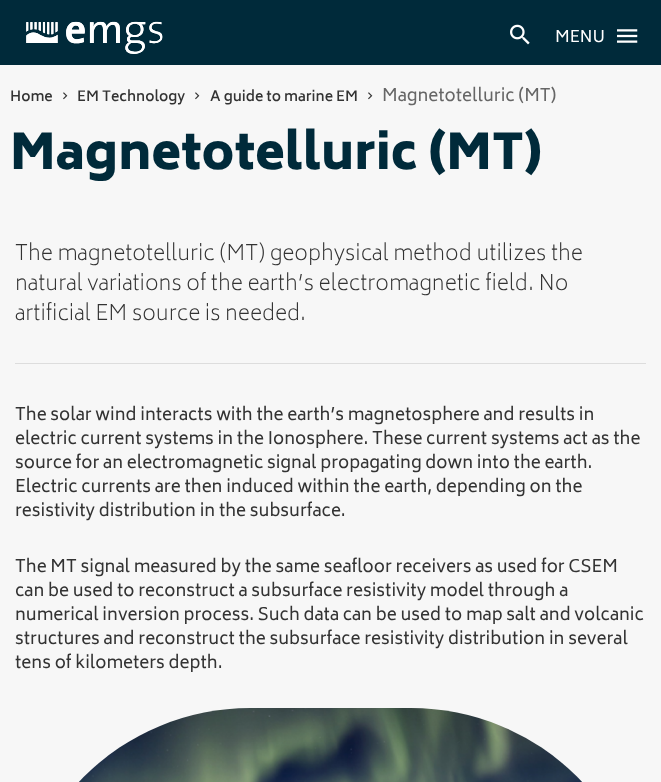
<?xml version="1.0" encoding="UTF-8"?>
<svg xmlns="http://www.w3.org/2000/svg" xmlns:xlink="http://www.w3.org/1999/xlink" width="661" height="782">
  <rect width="100%" height="100%" fill="#f7f7f7" />
  <rect width="661" height="65" fill="#002a3a" />
  <image x="26" y="21" width="137" height="33" xlink:href="image1.png" />
  <image x="510" y="24" width="20" height="21" xlink:href="image2.png" />
  <image x="617" y="29" width="21" height="14" xlink:href="image3.png" />
  <image x="63" y="92" width="5" height="8" xlink:href="image4.png" />
  <image x="195" y="92" width="5" height="8" xlink:href="image4.png" />
  <image x="368" y="92" width="5" height="8" xlink:href="image4.png" />
  <rect x="15" y="363" width="631" height="1" fill="#dddddd" />
  <image x="79" y="708" width="503" height="74" xlink:href="image5.png" />
  <text x="555" y="42" style="font-family: Biryani; font-size: 16px; fill: #ffffff">MENU</text>
  <text x="10" y="101" style="font-family: Biryani; font-size: 14px; font-weight: 600; fill: #333333">Home</text>
  <text x="77" y="101" style="font-family: Biryani; font-size: 14px; font-weight: 600; fill: #333333">EM Technology</text>
  <text x="210" y="101" style="font-family: Biryani; font-size: 14px; font-weight: 600; fill: #333333">A guide to marine EM</text>
  <text x="382" y="101" style="font-family: Biryani; font-size: 17px; fill: #666666">Magnetotelluric (MT)</text>
  <text x="10" y="169" style="font-family: Biryani; font-size: 48px; font-weight: 900; fill: #002a3a">Magnetotelluric (MT)</text>
  <text x="15" y="260" style="font-family: Biryani; font-size: 21px; font-weight: 200; fill: #333333">The magnetotelluric (MT) geophysical method utilizes the</text>
  <text x="15" y="290" style="font-family: Biryani; font-size: 21px; font-weight: 200; fill: #333333">natural variations of the earth’s electromagnetic field. No</text>
  <text x="15" y="320" style="font-family: Biryani; font-size: 21px; font-weight: 200; fill: #333333">artificial EM source is needed.</text>
  <text x="15" y="420" style="font-family: Biryani; font-size: 17px; fill: #333333">The solar wind interacts with the earth’s magnetosphere and results in</text>
  <text x="15" y="444" style="font-family: Biryani; font-size: 17px; fill: #333333">electric current systems in the Ionosphere. These current systems act as the</text>
  <text x="15" y="468" style="font-family: Biryani; font-size: 17px; fill: #333333">source for an electromagnetic signal propagating down into the earth.</text>
  <text x="15" y="492" style="font-family: Biryani; font-size: 17px; fill: #333333">Electric currents are then induced within the earth, depending on the</text>
  <text x="15" y="516" style="font-family: Biryani; font-size: 17px; fill: #333333">resistivity distribution in the subsurface.</text>
  <text x="15" y="572" style="font-family: Biryani; font-size: 17px; fill: #333333">The MT signal measured by the same seafloor receivers as used for CSEM</text>
  <text x="15" y="596" style="font-family: Biryani; font-size: 17px; fill: #333333">can be used to reconstruct a subsurface resistivity model through a</text>
  <text x="15" y="620" style="font-family: Biryani; font-size: 17px; fill: #333333">numerical inversion process. Such data can be used to map salt and volcanic</text>
  <text x="15" y="644" style="font-family: Biryani; font-size: 17px; fill: #333333">structures and reconstruct the subsurface resistivity distribution in several</text>
  <text x="15" y="668" style="font-family: Biryani; font-size: 17px; fill: #333333">tens of kilometers depth.</text>
</svg>
